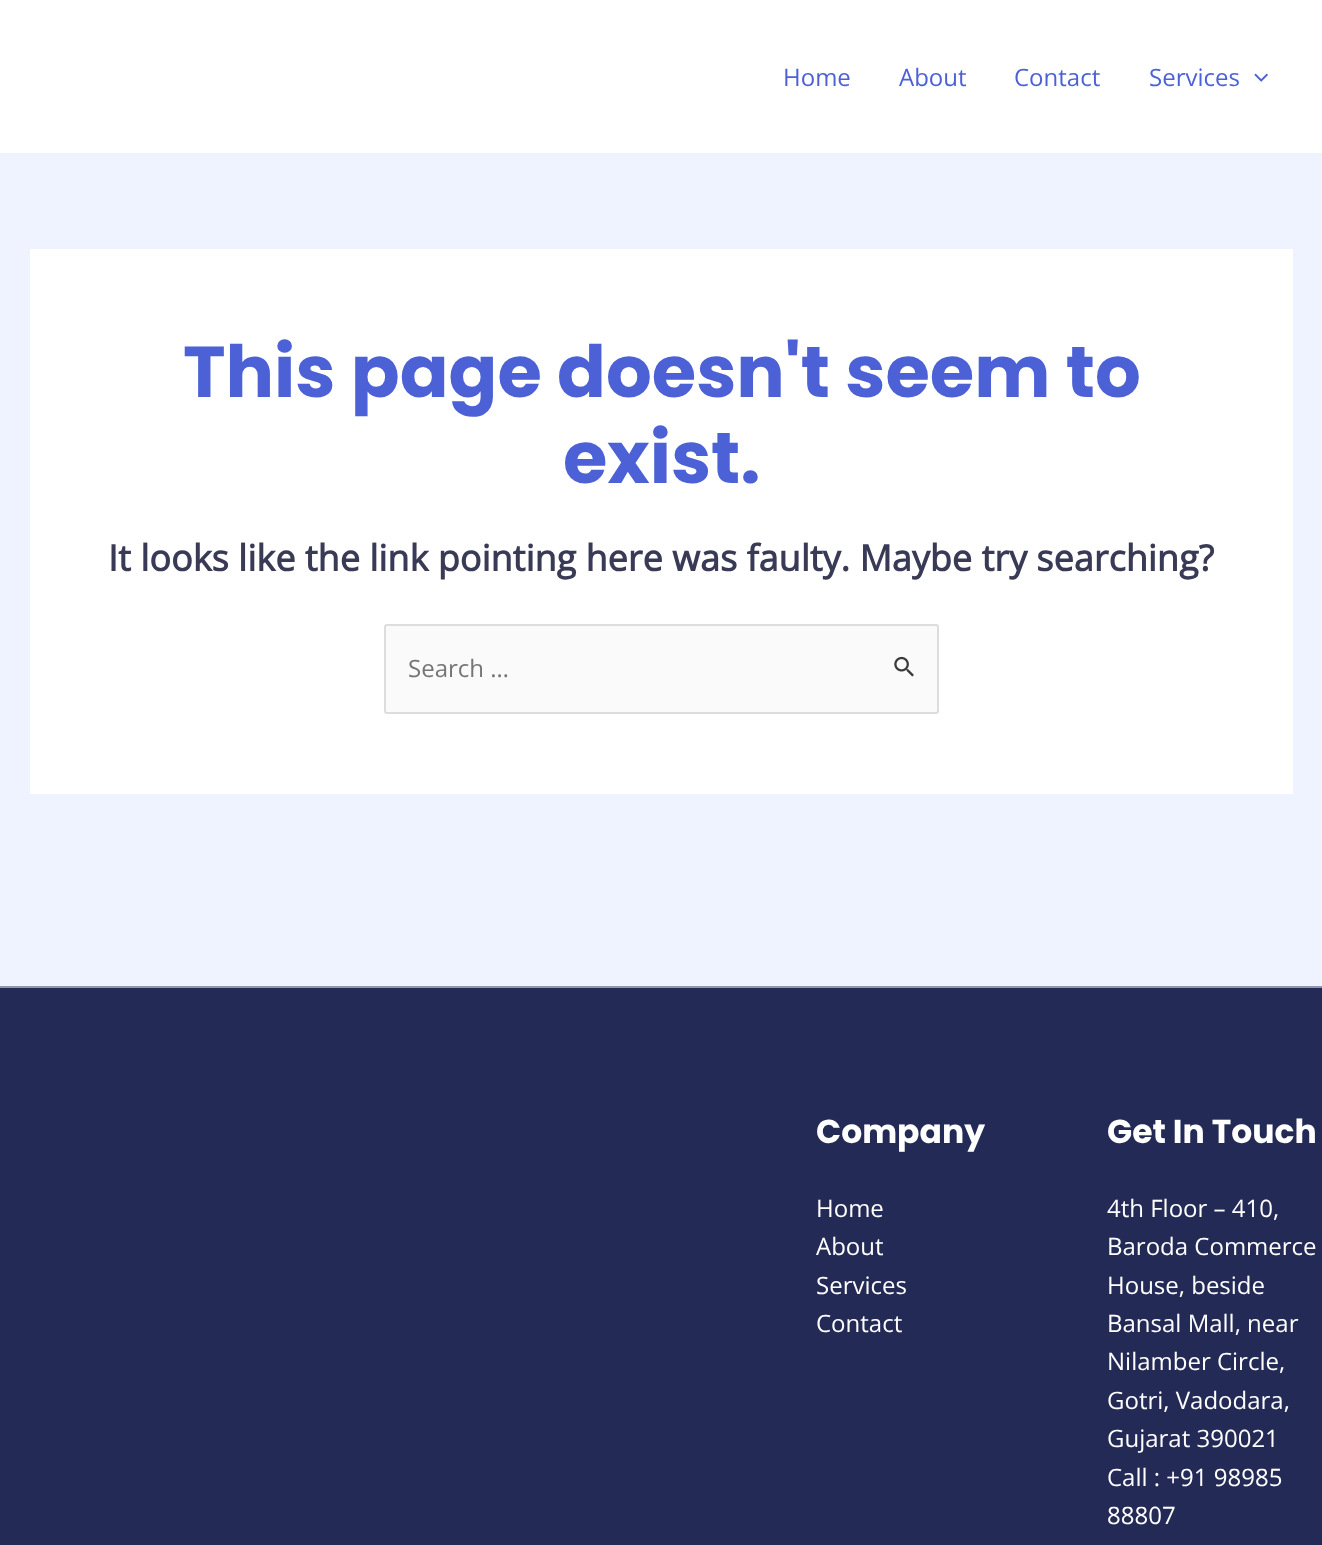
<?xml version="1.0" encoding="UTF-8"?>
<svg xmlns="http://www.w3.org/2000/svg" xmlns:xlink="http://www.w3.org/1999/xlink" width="1322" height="1545">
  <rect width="100%" height="100%" fill="#eff2ff" />
  <rect width="1322" height="153" fill="#ffffff" />
  <image x="1254" y="73" width="14" height="9" xlink:href="image1.png" />
  <rect x="30" y="249" width="1263" height="545" fill="#ffffff" />
  <rect x="385" y="625" width="553" height="88" rx="2" fill="#fafafa" stroke="#dddddd" stroke-width="2" />
  <image x="894" y="656" width="20" height="21" xlink:href="image2.png" />
  <rect y="988" width="1322" height="557" fill="#242a56" />
  <rect y="986" width="1322" height="2" fill="#9395a8" />
  <text x="783" y="86" style="font-family: Open Sans; font-size: 24px; fill: #4d61d6">Home</text>
  <text x="899" y="86" style="font-family: Open Sans; font-size: 24px; fill: #4d61d6">About</text>
  <text x="1014" y="86" style="font-family: Open Sans; font-size: 24px; fill: #4d61d6">Contact</text>
  <text x="1149" y="86" style="font-family: Open Sans; font-size: 24px; fill: #4d61d6">Services</text>
  <text x="183" y="397" style="font-family: Poppins; font-size: 72px; font-weight: bold; fill: #4d61d6">This page doesn't seem to</text>
  <text x="563" y="483" style="font-family: Poppins; font-size: 72px; font-weight: bold; fill: #4d61d6">exist.</text>
  <text x="108" y="571" style="font-family: Open Sans; font-size: 36px; font-weight: bold; fill: #393a56">It looks like the link pointing here was faulty. Maybe try searching?</text>
  <text x="408" y="677" style="font-family: Open Sans; font-size: 24px; fill: #757575">Search …</text>
  <text x="816" y="1143" style="font-family: Poppins; font-size: 33px; font-weight: bold; fill: #ffffff">Company</text>
  <text x="816" y="1217" style="font-family: Open Sans; font-size: 24px; fill: #ffffff">Home</text>
  <text x="816" y="1255" style="font-family: Open Sans; font-size: 24px; fill: #ffffff">About</text>
  <text x="816" y="1294" style="font-family: Open Sans; font-size: 24px; fill: #ffffff">Services</text>
  <text x="816" y="1332" style="font-family: Open Sans; font-size: 24px; fill: #ffffff">Contact</text>
  <text x="1107" y="1143" style="font-family: Poppins; font-size: 33px; font-weight: bold; fill: #ffffff">Get In Touch</text>
  <text x="1107" y="1217" style="font-family: Open Sans; font-size: 24px; fill: #ffffff">4th Floor – 410,</text>
  <text x="1107" y="1255" style="font-family: Open Sans; font-size: 24px; fill: #ffffff">Baroda Commerce</text>
  <text x="1107" y="1294" style="font-family: Open Sans; font-size: 24px; fill: #ffffff">House, beside</text>
  <text x="1107" y="1332" style="font-family: Open Sans; font-size: 24px; fill: #ffffff">Bansal Mall, near</text>
  <text x="1107" y="1370" style="font-family: Open Sans; font-size: 24px; fill: #ffffff">Nilamber Circle,</text>
  <text x="1107" y="1409" style="font-family: Open Sans; font-size: 24px; fill: #ffffff">Gotri, Vadodara,</text>
  <text x="1107" y="1447" style="font-family: Open Sans; font-size: 24px; fill: #ffffff">Gujarat 390021</text>
  <text x="1107" y="1486" style="font-family: Open Sans; font-size: 24px; fill: #ffffff">Call : +91 98985</text>
  <text x="1107" y="1524" style="font-family: Open Sans; font-size: 24px; fill: #ffffff">88807</text>
</svg>
